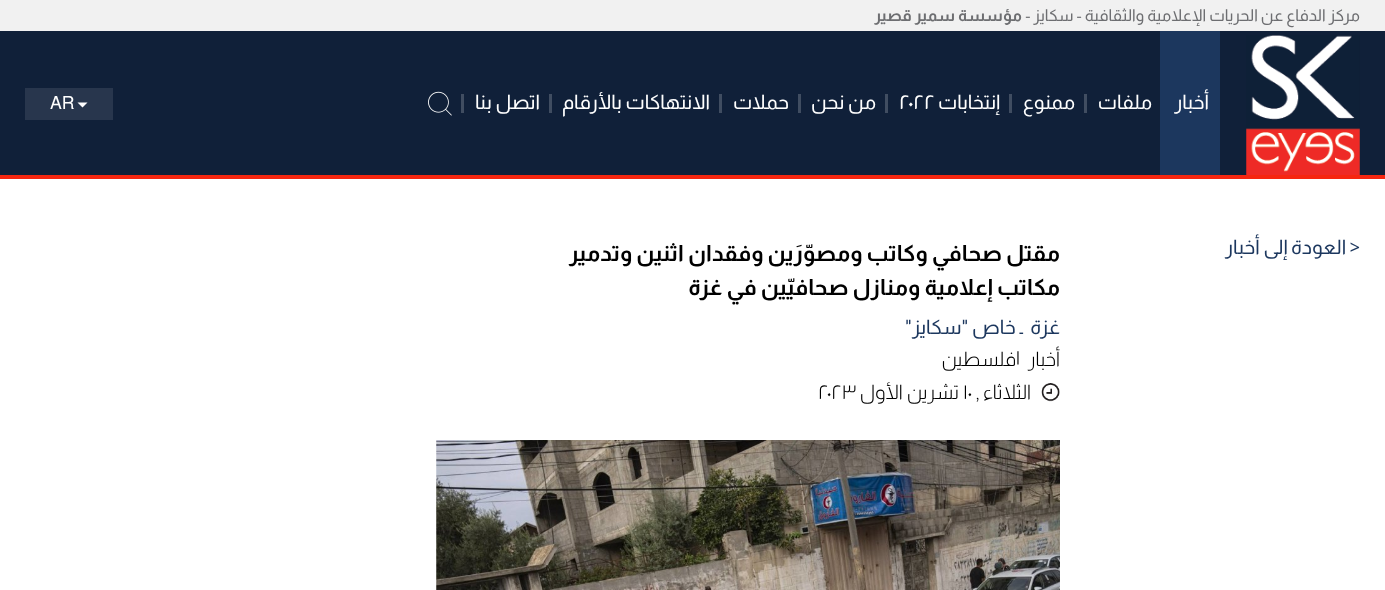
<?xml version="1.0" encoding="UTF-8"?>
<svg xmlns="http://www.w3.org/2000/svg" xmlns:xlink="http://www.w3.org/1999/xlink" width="1385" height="590">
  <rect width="100%" height="100%" fill="#ffffff" />
  <rect width="1385" height="31" fill="#f1f1f1" />
  <rect y="31" width="1385" height="144" fill="#102039" />
  <rect y="175" width="1385" height="4" fill="#f62610" />
  <image x="1246" y="35" width="114" height="140" xlink:href="image1.png" />
  <rect x="1160" y="31" width="60" height="144" fill="#1c375e" />
  <rect x="1084" y="94" width="3" height="19" fill="#404d61" />
  <rect x="1009" y="94" width="3" height="19" fill="#404d61" />
  <rect x="885" y="94" width="3" height="19" fill="#404d61" />
  <rect x="798" y="94" width="3" height="19" fill="#404d61" />
  <rect x="719" y="94" width="3" height="19" fill="#404d61" />
  <rect x="549" y="94" width="3" height="19" fill="#404d61" />
  <rect x="461" y="94" width="3" height="19" fill="#404d61" />
  <image x="428" y="91" width="24" height="25" xlink:href="image2.png" />
  <rect x="25" y="88" width="88" height="32" fill="#28364d" />
  <path d="M 77.5 102.5 h 10 l -5 5 z" fill="#ffffff" />
  <image x="1041" y="383" width="19" height="19" xlink:href="image3.png" />
  <image x="436" y="440" width="624" height="150" xlink:href="image4.png" />
  <text x="1360" y="21" style="font-family: Almarai; font-size: 16.25px; direction: rtl; fill: #6d6e71">مركز الدفاع عن الحريات الإعلامية والثقافية - سكايز -</text>
  <text x="1022" y="21" style="font-family: Almarai; font-size: 16.25px; font-weight: bold; direction: rtl; fill: #6d6e71">مؤسسة سمير قصير</text>
  <text x="1209" y="109" style="font-family: Almarai; font-size: 20px; direction: rtl; fill: #ffffff">أخبار</text>
  <text x="1152" y="109" style="font-family: Almarai; font-size: 20px; direction: rtl; fill: #ffffff">ملفات</text>
  <text x="1075" y="109" style="font-family: Almarai; font-size: 20px; direction: rtl; fill: #ffffff">ممنوع</text>
  <text x="1000" y="109" style="font-family: Almarai; font-size: 20px; direction: rtl; fill: #ffffff">إنتخابات</text>
  <text x="899" y="109" style="font-family: Almarai; font-size: 20px; fill: #ffffff">٢٠٢٢</text>
  <text x="876" y="109" style="font-family: Almarai; font-size: 20px; direction: rtl; fill: #ffffff">من نحن</text>
  <text x="789" y="109" style="font-family: Almarai; font-size: 20px; direction: rtl; fill: #ffffff">حملات</text>
  <text x="710" y="109" style="font-family: Almarai; font-size: 20px; direction: rtl; fill: #ffffff">الانتهاكات بالأرقام</text>
  <text x="540" y="109" style="font-family: Almarai; font-size: 20px; direction: rtl; fill: #ffffff">اتصل بنا</text>
  <text x="50" y="109" style="font-family: Almarai; font-size: 18px; fill: #ffffff">AR</text>
  <text x="1360" y="254" style="font-family: Almarai; font-size: 20px; direction: rtl; fill: #1c375e">&lt; العودة إلى أخبار</text>
  <text x="1060" y="261" style="font-family: Almarai; font-size: 22.5px; font-weight: bold; direction: rtl; fill: #000000">مقتل صحافي وكاتب ومصوّرَين وفقدان اثنين وتدمير</text>
  <text x="1060" y="295" style="font-family: Almarai; font-size: 22.5px; font-weight: bold; direction: rtl; fill: #000000">مكاتب إعلامية ومنازل صحافيّين في غزة</text>
  <text x="1060" y="334" style="font-family: Almarai; font-size: 20px; direction: rtl; fill: #1c375e" xml:space="preserve">غزة  ـ خاص "سكايز"</text>
  <text x="1060" y="366" style="font-family: Almarai; font-size: 20px; font-weight: 300; direction: rtl; fill: #000000">أخبار</text>
  <text x="1016" y="365" style="font-family: Almarai; font-size: 20px; font-weight: 300; fill: #000000">|</text>
  <text x="1016" y="366" style="font-family: Almarai; font-size: 20px; font-weight: 300; direction: rtl; fill: #000000">فلسطين</text>
  <text x="1031" y="399" style="font-family: Almarai; font-size: 20px; font-weight: 300; direction: rtl; fill: #000000">الثلاثاء ,</text>
  <text x="963" y="399" style="font-family: Almarai; font-size: 20px; font-weight: 300; fill: #000000">١٠</text>
  <text x="959" y="399" style="font-family: Almarai; font-size: 20px; font-weight: 300; direction: rtl; fill: #000000">تشرين الأول</text>
  <text x="818" y="399" style="font-family: Almarai; font-size: 20px; font-weight: 300; fill: #000000">٢٠٢٣</text>
</svg>
